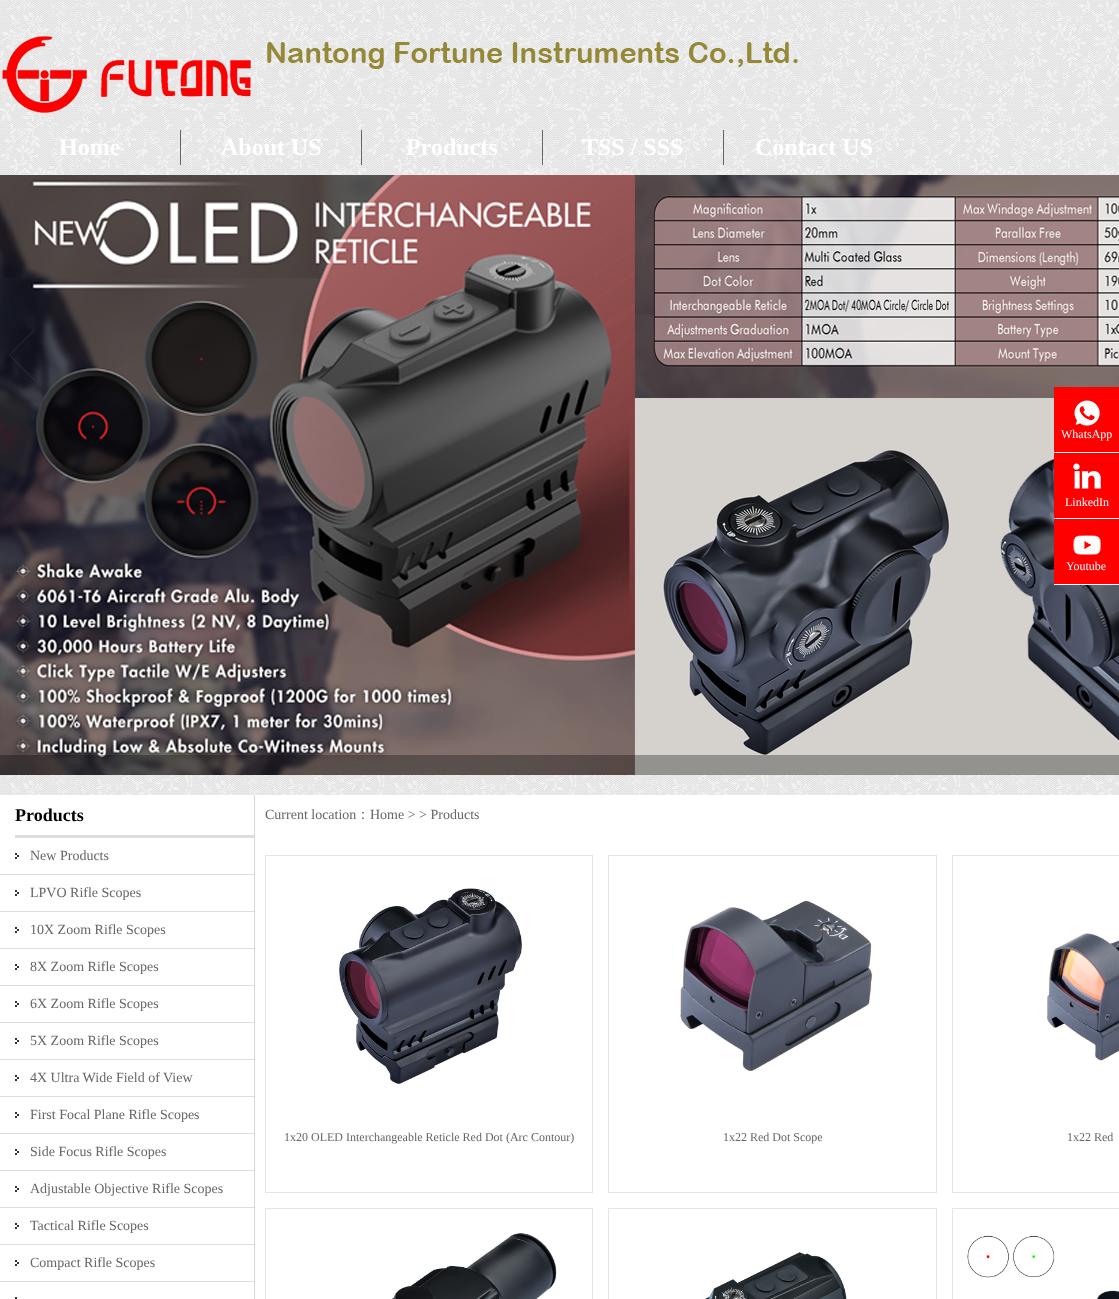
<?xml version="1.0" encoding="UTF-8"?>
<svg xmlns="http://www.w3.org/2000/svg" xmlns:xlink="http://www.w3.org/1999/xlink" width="1119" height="1299">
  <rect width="100%" height="100%" fill="#ffffff" />
  <image x="0" y="0" width="1119" height="795" xlink:href="image1.png" />
  <image x="2" y="36" width="796" height="77" xlink:href="image2.png" />
  <rect x="180" y="130" width="1" height="35" fill="#666666" />
  <rect x="361" y="130" width="1" height="35" fill="#666666" />
  <rect x="542" y="130" width="1" height="35" fill="#666666" />
  <rect x="723" y="130" width="1" height="35" fill="#666666" />
  <image x="0" y="175" width="1119" height="600" xlink:href="image3.png" />
  <image x="9" y="329" width="35" height="74" xlink:href="image4.png" />
  <rect y="755" width="1119" height="20" fill="#000000" fill-opacity="0.3" />
  <rect x="1054" y="387" width="65" height="65" fill="#fe0000" />
  <rect x="1054" y="452" width="65" height="1" fill="#ffffff" />
  <image x="1074" y="400" width="26" height="26" xlink:href="image5.png" />
  <rect x="1054" y="453" width="65" height="65" fill="#fe0000" />
  <rect x="1054" y="518" width="65" height="1" fill="#ffffff" />
  <image x="1073" y="463" width="28" height="26" xlink:href="image6.png" />
  <rect x="1054" y="519" width="65" height="65" fill="#fe0000" />
  <rect x="1054" y="584" width="65" height="1" fill="#ffffff" />
  <image x="1073" y="535" width="28" height="20" xlink:href="image7.png" />
  <rect x="254" y="795" width="1" height="504" fill="#d8d8d8" />
  <rect x="15" y="835" width="239" height="3" fill="#dddddd" />
  <rect y="874" width="254" height="1" fill="#dddddd" />
  <image x="15" y="853" width="4" height="6" xlink:href="image8.png" />
  <rect y="911" width="254" height="1" fill="#dddddd" />
  <image x="15" y="890" width="4" height="6" xlink:href="image8.png" />
  <rect y="948" width="254" height="1" fill="#dddddd" />
  <image x="15" y="927" width="4" height="6" xlink:href="image8.png" />
  <rect y="985" width="254" height="1" fill="#dddddd" />
  <image x="15" y="964" width="4" height="6" xlink:href="image8.png" />
  <rect y="1022" width="254" height="1" fill="#dddddd" />
  <image x="15" y="1001" width="4" height="6" xlink:href="image8.png" />
  <rect y="1059" width="254" height="1" fill="#dddddd" />
  <image x="15" y="1038" width="4" height="6" xlink:href="image8.png" />
  <rect y="1096" width="254" height="1" fill="#dddddd" />
  <image x="15" y="1075" width="4" height="6" xlink:href="image8.png" />
  <rect y="1133" width="254" height="1" fill="#dddddd" />
  <image x="15" y="1112" width="4" height="6" xlink:href="image8.png" />
  <rect y="1170" width="254" height="1" fill="#dddddd" />
  <image x="15" y="1149" width="4" height="6" xlink:href="image8.png" />
  <rect y="1207" width="254" height="1" fill="#dddddd" />
  <image x="15" y="1186" width="4" height="6" xlink:href="image8.png" />
  <rect y="1244" width="254" height="1" fill="#dddddd" />
  <image x="15" y="1223" width="4" height="6" xlink:href="image8.png" />
  <rect y="1281" width="254" height="1" fill="#dddddd" />
  <image x="15" y="1260" width="4" height="6" xlink:href="image8.png" />
  <rect x="15" y="1297" width="2" height="2" fill="#333333" />
  <rect x="265.5" y="855.5" width="327" height="337" fill="none" stroke="#e4e4e4" />
  <image x="339" y="888" width="183" height="196" xlink:href="image9.png" />
  <rect x="608.5" y="855.5" width="328" height="337" fill="none" stroke="#e4e4e4" />
  <image x="680" y="900" width="193" height="171" xlink:href="image10.png" />
  <rect x="952.5" y="855.5" width="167" height="337" fill="none" stroke="#e4e4e4" />
  <image x="1047" y="933" width="72" height="128" xlink:href="image11.png" />
  <rect x="265.5" y="1208.5" width="327" height="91" fill="none" stroke="#e4e4e4" />
  <image x="392" y="1232" width="165" height="67" xlink:href="image12.png" />
  <rect x="608.5" y="1208.5" width="328" height="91" fill="none" stroke="#e4e4e4" />
  <image x="705" y="1252" width="142" height="47" xlink:href="image13.png" />
  <rect x="952.5" y="1208.5" width="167" height="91" fill="none" stroke="#e4e4e4" />
  <image x="967" y="1235" width="152" height="64" xlink:href="image14.png" />
  <text x="59" y="155" style="font-family: Liberation Serif; font-size: 24px; font-weight: bold; fill: #ffffff">Home</text>
  <text x="221" y="155" style="font-family: Liberation Serif; font-size: 24px; font-weight: bold; fill: #ffffff">About US</text>
  <text x="406" y="155" style="font-family: Liberation Serif; font-size: 24px; font-weight: bold; fill: #ffffff">Products</text>
  <text x="582" y="155" style="font-family: Liberation Serif; font-size: 24px; font-weight: bold; fill: #ffffff">TSS / SSS</text>
  <text x="755" y="155" style="font-family: Liberation Serif; font-size: 24px; font-weight: bold; fill: #ffffff">Contact US</text>
  <text x="1061" y="438" style="font-family: Liberation Serif; font-size: 12px; fill: #ffffff">WhatsApp</text>
  <text x="1065" y="506" style="font-family: Liberation Serif; font-size: 12px; fill: #ffffff">LinkedIn</text>
  <text x="1066" y="570" style="font-family: Liberation Serif; font-size: 12px; fill: #ffffff">Youtube</text>
  <text x="15" y="821" style="font-family: Liberation Serif; font-size: 18px; font-weight: bold; fill: #000000">Products</text>
  <text x="30" y="860" style="font-family: Liberation Serif; font-size: 14px; fill: #666666">New Products</text>
  <text x="30" y="897" style="font-family: Liberation Serif; font-size: 14px; fill: #666666">LPVO Rifle Scopes</text>
  <text x="30" y="934" style="font-family: Liberation Serif; font-size: 14px; fill: #666666">10X Zoom Rifle Scopes</text>
  <text x="30" y="971" style="font-family: Liberation Serif; font-size: 14px; fill: #666666">8X Zoom Rifle Scopes</text>
  <text x="30" y="1008" style="font-family: Liberation Serif; font-size: 14px; fill: #666666">6X Zoom Rifle Scopes</text>
  <text x="30" y="1045" style="font-family: Liberation Serif; font-size: 14px; fill: #666666">5X Zoom Rifle Scopes</text>
  <text x="30" y="1082" style="font-family: Liberation Serif; font-size: 14px; fill: #666666">4X Ultra Wide Field of View</text>
  <text x="30" y="1119" style="font-family: Liberation Serif; font-size: 14px; fill: #666666">First Focal Plane Rifle Scopes</text>
  <text x="30" y="1156" style="font-family: Liberation Serif; font-size: 14px; fill: #666666">Side Focus Rifle Scopes</text>
  <text x="30" y="1193" style="font-family: Liberation Serif; font-size: 14px; fill: #666666">Adjustable Objective Rifle Scopes</text>
  <text x="30" y="1230" style="font-family: Liberation Serif; font-size: 14px; fill: #666666">Tactical Rifle Scopes</text>
  <text x="30" y="1267" style="font-family: Liberation Serif; font-size: 14px; fill: #666666">Compact Rifle Scopes</text>
  <text x="265" y="819" style="font-family: Liberation Serif; font-size: 14px; fill: #666666">Current location</text>
  <text x="356" y="819" style="font-family: WenQuanYi Zen Hei; font-size: 14px; font-weight: 500; fill: #666666">：</text>
  <text x="370" y="819" style="font-family: Liberation Serif; font-size: 14px; fill: #666666">Home &gt; &gt; Products</text>
  <text x="284" y="1141" style="font-family: Liberation Serif; font-size: 12px; fill: #666666">1x20 OLED Interchangeable Reticle Red Dot (Arc Contour)</text>
  <text x="723" y="1141" style="font-family: Liberation Serif; font-size: 12px; fill: #666666">1x22 Red Dot Scope</text>
  <text x="1067" y="1141" style="font-family: Liberation Serif; font-size: 12px; fill: #666666">1x22 Red</text>
</svg>
